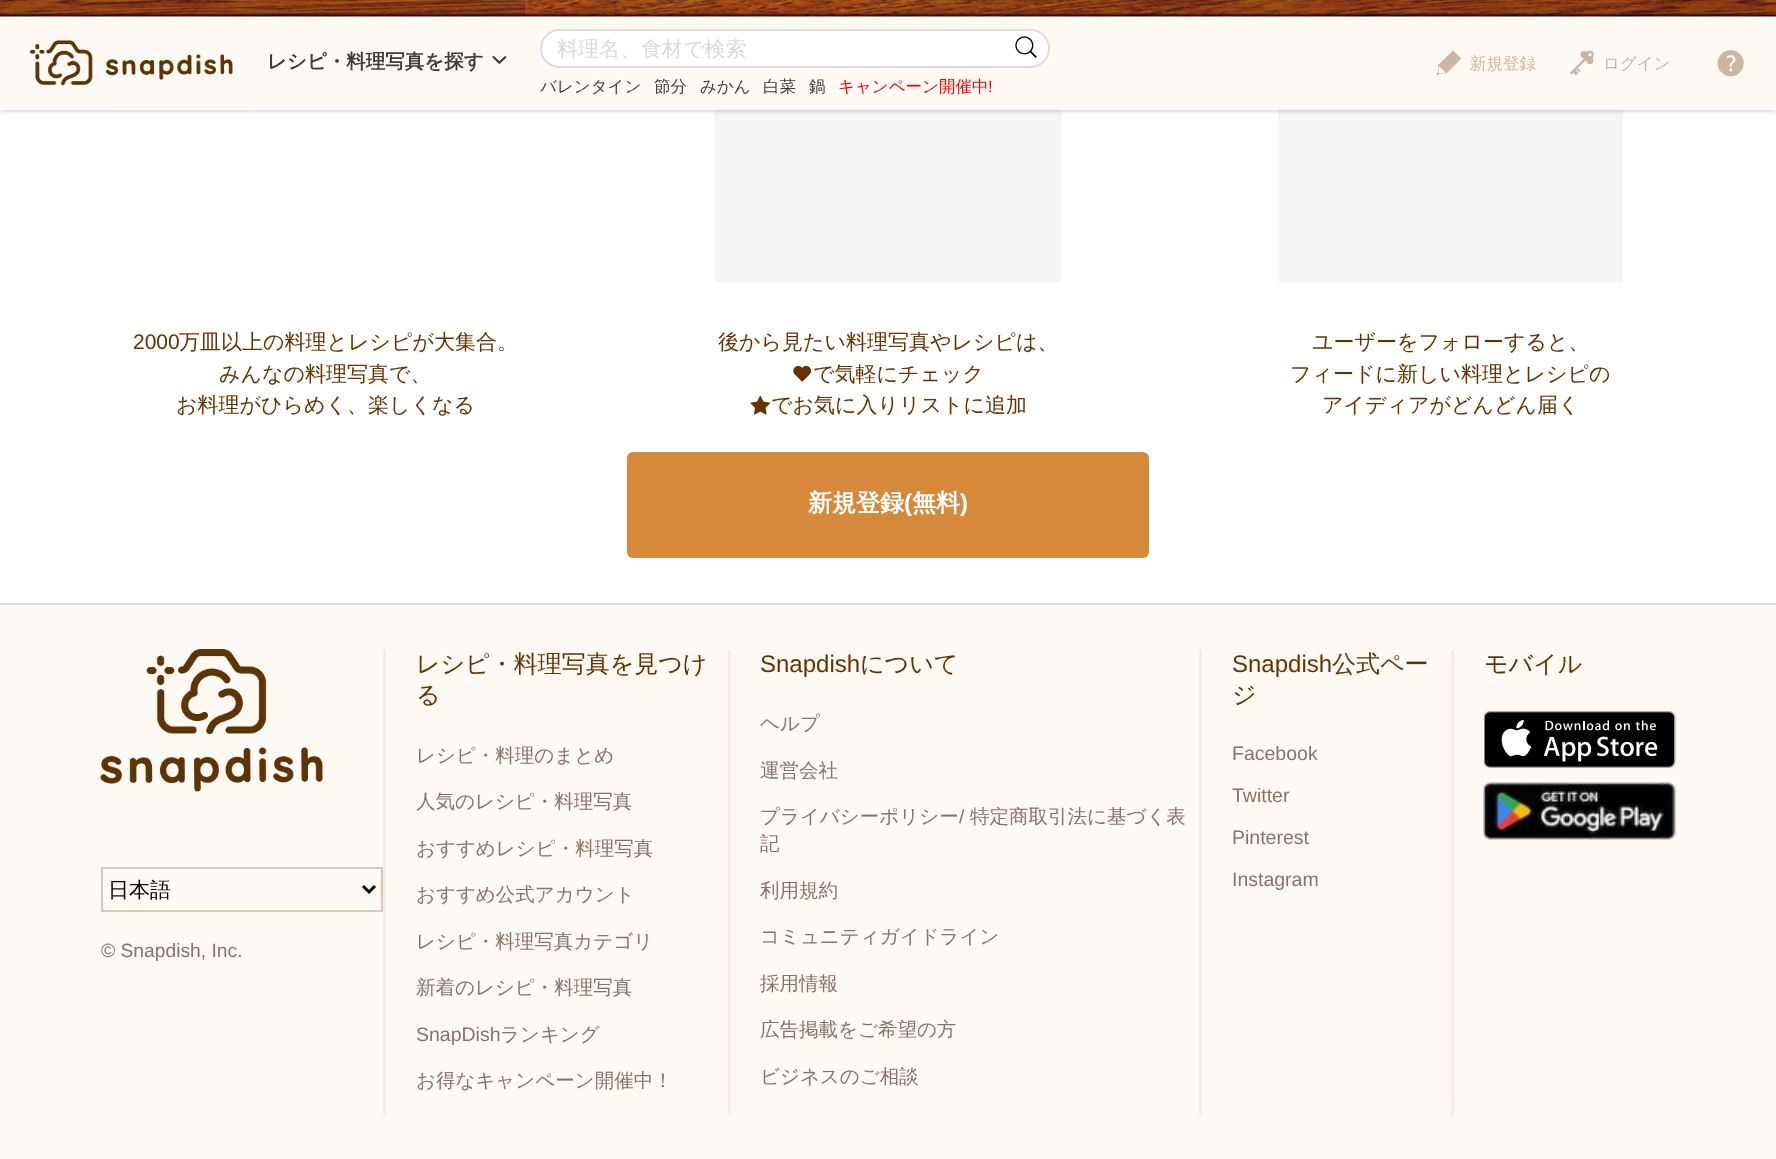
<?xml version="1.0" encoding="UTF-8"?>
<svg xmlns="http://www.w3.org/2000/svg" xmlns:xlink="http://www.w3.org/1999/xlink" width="1776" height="1159">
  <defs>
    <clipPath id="clip1"><path d="M 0 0 h 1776 v 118 h -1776 z m 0 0 h 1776 v 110 h -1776 z" clip-rule="evenodd" /></clipPath>
  </defs>
  <rect width="100%" height="100%" fill="#ffffff" />
  <rect x="715" y="108" width="346" height="174" fill="#f5f5f5" />
  <rect x="1278" y="108" width="345" height="174" fill="#f5f5f5" />
  <g clip-path="url(#clip1)">
    <rect y="2" width="1776" height="109" fill="#000000" fill-opacity="0.2" filter="blur(2px)" />
  </g>
  <image x="0" y="0" width="1776" height="108" xlink:href="image1.png" />
  <image x="30" y="40" width="203" height="46" xlink:href="image2.png" />
  <image x="492" y="56" width="15" height="8" xlink:href="image3.png" />
  <rect x="541" y="30" width="508" height="37" rx="18.5" fill="#ffffff" stroke="#dddddd" stroke-width="2" />
  <image x="1015" y="36" width="22" height="22" xlink:href="image4.png" />
  <image x="1436" y="50" width="25" height="26" xlink:href="image5.png" />
  <image x="1570" y="50" width="24" height="26" xlink:href="image6.png" />
  <image x="1717" y="50" width="27" height="27" xlink:href="image7.png" />
  <rect y="603" width="1776" height="2" fill="#dddddd" />
  <image x="793" y="365" width="19" height="17" xlink:href="image8.png" />
  <image x="750" y="395" width="20" height="20" xlink:href="image9.png" />
  <rect x="627" y="452" width="522" height="106" rx="6" fill="#d7893b" />
  <rect y="605" width="1776" height="554" fill="#fff9f4" />
  <rect x="383" y="650" width="3" height="465" fill="#f6eee6" />
  <rect x="728" y="650" width="3" height="465" fill="#f6eee6" />
  <rect x="1199" y="650" width="3" height="465" fill="#f6eee6" />
  <rect x="1451" y="650" width="3" height="465" fill="#f6eee6" />
  <image x="1484" y="711" width="192" height="57" xlink:href="image10.png" />
  <image x="1483" y="782" width="193" height="58" xlink:href="image11.png" />
  <image x="100" y="649" width="223" height="143" xlink:href="image12.png" />
  <rect x="102" y="868" width="280" height="43" fill="none" stroke="#dcc8b5" stroke-width="2" />
  <path d="M 363 886 l 6 6 l 6 -6" fill="none" stroke="#000000" stroke-width="3" />
  <text x="267" y="68" style="font-family: WenQuanYi Zen Hei; font-size: 19.5px; font-weight: bold; fill: #403c36">レシピ・料理写真を探す</text>
  <text x="557" y="56" style="font-family: WenQuanYi Zen Hei; font-size: 21px; font-weight: 500; fill: #dadada">料理名、食材で検索</text>
  <text x="540" y="92" style="font-family: WenQuanYi Zen Hei; font-size: 16.5px; font-weight: 500; fill: #403c36">バレンタイン</text>
  <text x="654" y="92" style="font-family: WenQuanYi Zen Hei; font-size: 16.5px; font-weight: 500; fill: #403c36">節分</text>
  <text x="700" y="92" style="font-family: WenQuanYi Zen Hei; font-size: 16.5px; font-weight: 500; fill: #403c36">みかん</text>
  <text x="763" y="92" style="font-family: WenQuanYi Zen Hei; font-size: 16.5px; font-weight: 500; fill: #403c36">白菜</text>
  <text x="809" y="92" style="font-family: WenQuanYi Zen Hei; font-size: 16.5px; font-weight: 500; fill: #403c36">鍋</text>
  <text x="838" y="92" style="font-family: WenQuanYi Zen Hei; font-size: 16.5px; font-weight: 500; fill: #ff0000">キャンペーン開催中</text>
  <text x="988" y="92" style="font-family: Liberation Sans; font-size: 16.5px; fill: #ff0000">!</text>
  <text x="1470" y="69" style="font-family: WenQuanYi Zen Hei; font-size: 16.5px; font-weight: 500; fill: #ccb6a1">新規登録</text>
  <text x="1603" y="69" style="font-family: WenQuanYi Zen Hei; font-size: 16.5px; font-weight: 500; fill: #ccb6a1">ログイン</text>
  <text x="133" y="349" style="font-family: Liberation Sans; font-size: 21px; fill: #663300">2000</text>
  <text x="179" y="349" style="font-family: WenQuanYi Zen Hei; font-size: 21px; font-weight: 500; fill: #663300">万皿以上の料理とレシピが大集合。</text>
  <text x="219" y="381" style="font-family: WenQuanYi Zen Hei; font-size: 21px; font-weight: 500; fill: #663300">みんなの料理写真で、</text>
  <text x="176" y="412" style="font-family: WenQuanYi Zen Hei; font-size: 21px; font-weight: 500; fill: #663300">お料理がひらめく、楽しくなる</text>
  <text x="718" y="349" style="font-family: WenQuanYi Zen Hei; font-size: 21px; font-weight: 500; fill: #663300">後から見たい料理写真やレシピは、</text>
  <text x="813" y="381" style="font-family: WenQuanYi Zen Hei; font-size: 21px; font-weight: 500; fill: #663300">で気軽にチェック</text>
  <text x="771" y="412" style="font-family: WenQuanYi Zen Hei; font-size: 21px; font-weight: 500; fill: #663300">でお気に入りリストに追加</text>
  <text x="1312" y="349" style="font-family: WenQuanYi Zen Hei; font-size: 21px; font-weight: 500; fill: #663300">ユーザーをフォローすると、</text>
  <text x="1290" y="381" style="font-family: WenQuanYi Zen Hei; font-size: 21px; font-weight: 500; fill: #663300">フィードに新しい料理とレシピの</text>
  <text x="1322" y="412" style="font-family: WenQuanYi Zen Hei; font-size: 21px; font-weight: 500; fill: #663300">アイディアがどんどん届く</text>
  <text x="808" y="511" style="font-family: WenQuanYi Zen Hei; font-size: 24px; font-weight: bold; fill: #ffffff">新規登録</text>
  <text x="904" y="511" style="font-family: Liberation Sans; font-size: 24px; font-weight: bold; fill: #ffffff">(</text>
  <text x="912" y="511" style="font-family: WenQuanYi Zen Hei; font-size: 24px; font-weight: bold; fill: #ffffff">無料</text>
  <text x="960" y="511" style="font-family: Liberation Sans; font-size: 24px; font-weight: bold; fill: #ffffff">)</text>
  <text x="416" y="672" style="font-family: WenQuanYi Zen Hei; font-size: 24px; font-weight: 500; fill: #663300">レシピ・料理写真を見つけ</text>
  <text x="416" y="703" style="font-family: WenQuanYi Zen Hei; font-size: 24px; font-weight: 500; fill: #663300">る</text>
  <text x="416" y="762" style="font-family: WenQuanYi Zen Hei; font-size: 19.5px; font-weight: 500; fill: #897364">レシピ・料理のまとめ</text>
  <text x="416" y="808" style="font-family: WenQuanYi Zen Hei; font-size: 19.5px; font-weight: 500; fill: #897364">人気のレシピ・料理写真</text>
  <text x="416" y="855" style="font-family: WenQuanYi Zen Hei; font-size: 19.5px; font-weight: 500; fill: #897364">おすすめレシピ・料理写真</text>
  <text x="416" y="901" style="font-family: WenQuanYi Zen Hei; font-size: 19.5px; font-weight: 500; fill: #897364">おすすめ公式アカウント</text>
  <text x="416" y="948" style="font-family: WenQuanYi Zen Hei; font-size: 19.5px; font-weight: 500; fill: #897364">レシピ・料理写真カテゴリ</text>
  <text x="416" y="994" style="font-family: WenQuanYi Zen Hei; font-size: 19.5px; font-weight: 500; fill: #897364">新着のレシピ・料理写真</text>
  <text x="416" y="1041" style="font-family: Liberation Sans; font-size: 19.5px; fill: #897364">SnapDish</text>
  <text x="500" y="1041" style="font-family: WenQuanYi Zen Hei; font-size: 19.5px; font-weight: 500; fill: #897364">ランキング</text>
  <text x="416" y="1087" style="font-family: WenQuanYi Zen Hei; font-size: 19.5px; font-weight: 500; fill: #897364">お得なキャンペーン開催中！</text>
  <text x="760" y="672" style="font-family: Liberation Sans; font-size: 24px; fill: #663300">Snapdish</text>
  <text x="860" y="672" style="font-family: WenQuanYi Zen Hei; font-size: 24px; font-weight: 500; fill: #663300">について</text>
  <text x="760" y="730" style="font-family: WenQuanYi Zen Hei; font-size: 19.5px; font-weight: 500; fill: #897364">ヘルプ</text>
  <text x="760" y="777" style="font-family: WenQuanYi Zen Hei; font-size: 19.5px; font-weight: 500; fill: #897364">運営会社</text>
  <text x="760" y="823" style="font-family: WenQuanYi Zen Hei; font-size: 19.5px; font-weight: 500; fill: #897364">プライバシーポリシー</text>
  <text x="959" y="823" style="font-family: Liberation Sans; font-size: 19.5px; fill: #897364">/</text>
  <text x="970" y="823" style="font-family: WenQuanYi Zen Hei; font-size: 19.5px; font-weight: 500; fill: #897364">特定商取引法に基づく表</text>
  <text x="760" y="850" style="font-family: WenQuanYi Zen Hei; font-size: 19.5px; font-weight: 500; fill: #897364">記</text>
  <text x="760" y="897" style="font-family: WenQuanYi Zen Hei; font-size: 19.5px; font-weight: 500; fill: #897364">利用規約</text>
  <text x="760" y="943" style="font-family: WenQuanYi Zen Hei; font-size: 19.5px; font-weight: 500; fill: #897364">コミュニティガイドライン</text>
  <text x="760" y="990" style="font-family: WenQuanYi Zen Hei; font-size: 19.5px; font-weight: 500; fill: #897364">採用情報</text>
  <text x="760" y="1036" style="font-family: WenQuanYi Zen Hei; font-size: 19.5px; font-weight: 500; fill: #897364">広告掲載をご希望の方</text>
  <text x="760" y="1083" style="font-family: WenQuanYi Zen Hei; font-size: 19.5px; font-weight: 500; fill: #897364">ビジネスのご相談</text>
  <text x="1232" y="672" style="font-family: Liberation Sans; font-size: 24px; fill: #663300">Snapdish</text>
  <text x="1332" y="672" style="font-family: WenQuanYi Zen Hei; font-size: 24px; font-weight: 500; fill: #663300">公式ペー</text>
  <text x="1232" y="703" style="font-family: WenQuanYi Zen Hei; font-size: 24px; font-weight: 500; fill: #663300">ジ</text>
  <text x="1232" y="760" style="font-family: Liberation Sans; font-size: 19.5px; fill: #897364">Facebook</text>
  <text x="1232" y="802" style="font-family: Liberation Sans; font-size: 19.5px; fill: #897364">Twitter</text>
  <text x="1232" y="844" style="font-family: Liberation Sans; font-size: 19.5px; fill: #897364">Pinterest</text>
  <text x="1232" y="886" style="font-family: Liberation Sans; font-size: 19.5px; fill: #897364">Instagram</text>
  <text x="1484" y="672" style="font-family: WenQuanYi Zen Hei; font-size: 24px; font-weight: 500; fill: #663300">モバイル</text>
  <text x="108" y="897" style="font-family: WenQuanYi Zen Hei; font-size: 21px; font-weight: 500; fill: #000000">日本語</text>
  <text x="101" y="957" style="font-family: Liberation Sans; font-size: 19.25px; fill: #897364">© Snapdish, Inc.</text>
</svg>
